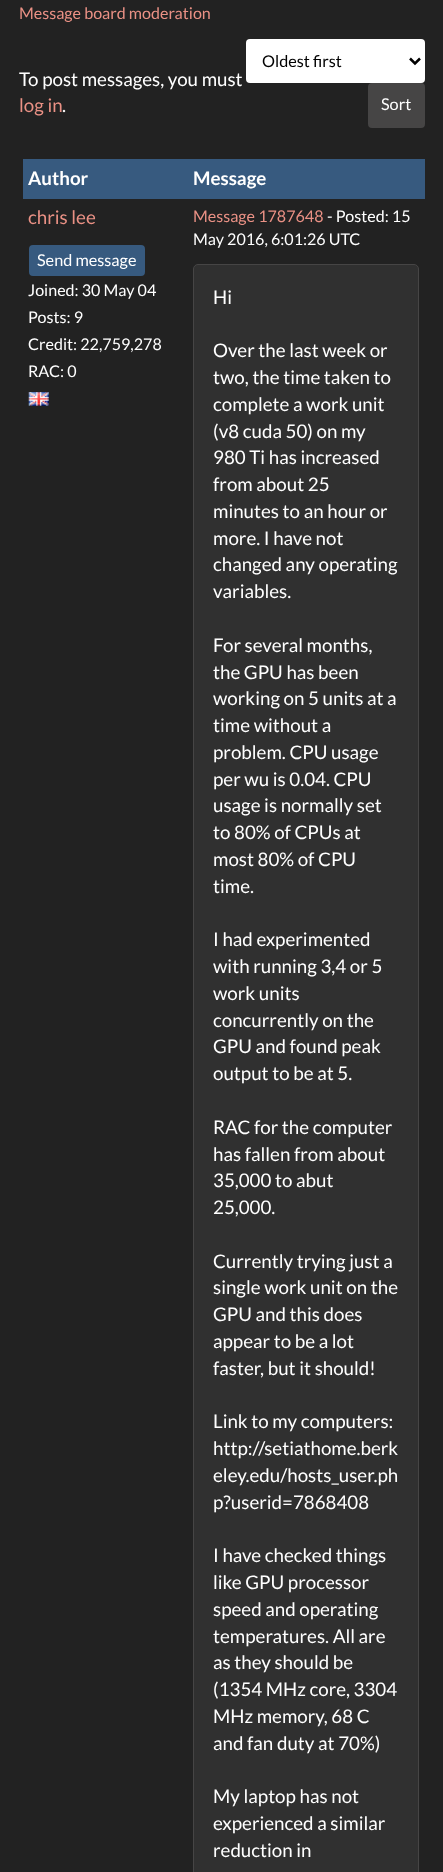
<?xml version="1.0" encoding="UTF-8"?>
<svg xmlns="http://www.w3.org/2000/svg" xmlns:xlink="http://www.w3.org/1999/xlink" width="443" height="1872">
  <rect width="100%" height="100%" fill="#222222" />
  <rect x="246" y="39" width="179" height="44" rx="4" fill="#ffffff" />
  <path d="M 410 58.5 l 5 5 l 5 -5" fill="none" stroke="#000000" stroke-width="2.5" />
  <rect x="369.5" y="84.5" width="54" height="42" rx="2.5" fill="#464545" stroke="#464545" stroke-width="3" />
  <rect x="23" y="159" width="402" height="40" fill="#375a7f" />
  <rect x="30.5" y="246.5" width="113" height="28" rx="2.5" fill="#375a7f" stroke="#375a7f" stroke-width="3" />
  <image x="28" y="392" width="21" height="14" xlink:href="image1.png" />
  <rect x="193.5" y="264.5" width="225" height="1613" rx="4.5" fill="#303030" stroke="#464545" />
  <text x="19" y="19" style="font-family: Lato; font-size: 16.1px; fill: #ea9185">Message board moderation</text>
  <text x="19" y="86" style="font-family: Lato; font-size: 18.75px; fill: #ffffff">To post messages, you must</text>
  <text x="19" y="112" style="font-family: Lato; font-size: 18.75px; fill: #ea9185">log in</text>
  <text x="62" y="112" style="font-family: Lato; font-size: 18.75px; fill: #ffffff">.</text>
  <text x="262" y="67" style="font-family: Lato; font-size: 16.25px; fill: #000000">Oldest first</text>
  <text x="381" y="110" style="font-family: Lato; font-size: 16.25px; fill: #ffffff">Sort</text>
  <text x="28" y="185" style="font-family: Lato; font-size: 18.75px; font-weight: bold; fill: #ffffff">Author</text>
  <text x="193" y="185" style="font-family: Lato; font-size: 18.75px; font-weight: bold; fill: #ffffff">Message</text>
  <text x="28" y="224" style="font-family: Lato; font-size: 18.75px; fill: #ea9185">chris lee</text>
  <text x="37" y="266" style="font-family: Lato; font-size: 16.25px; fill: #ffffff">Send message</text>
  <text x="28" y="296" style="font-family: Lato; font-size: 16.1px; fill: #ffffff">Joined: 30 May 04</text>
  <text x="28" y="323" style="font-family: Lato; font-size: 16.1px; fill: #ffffff">Posts: 9</text>
  <text x="28" y="350" style="font-family: Lato; font-size: 16.1px; fill: #ffffff">Credit: 22,759,278</text>
  <text x="28" y="377" style="font-family: Lato; font-size: 16.1px; fill: #ffffff">RAC: 0</text>
  <text x="193" y="222" style="font-family: Lato; font-size: 16.1px; fill: #ea9185">Message 1787648</text>
  <text x="327" y="222" style="font-family: Lato; font-size: 16.1px; fill: #ffffff">- Posted: 15</text>
  <text x="193" y="245" style="font-family: Lato; font-size: 16.1px; fill: #ffffff">May 2016, 6:01:26 UTC</text>
  <text x="213" y="304" style="font-family: Lato; font-size: 18.75px; fill: #ffffff">Hi</text>
  <text x="213" y="357" style="font-family: Lato; font-size: 18.75px; fill: #ffffff">Over the last week or</text>
  <text x="213" y="384" style="font-family: Lato; font-size: 18.75px; fill: #ffffff">two, the time taken to</text>
  <text x="213" y="411" style="font-family: Lato; font-size: 18.75px; fill: #ffffff">complete a work unit</text>
  <text x="213" y="438" style="font-family: Lato; font-size: 18.75px; fill: #ffffff">(v8 cuda 50) on my</text>
  <text x="213" y="464" style="font-family: Lato; font-size: 18.75px; fill: #ffffff">980 Ti has increased</text>
  <text x="213" y="491" style="font-family: Lato; font-size: 18.75px; fill: #ffffff">from about 25</text>
  <text x="213" y="518" style="font-family: Lato; font-size: 18.75px; fill: #ffffff">minutes to an hour or</text>
  <text x="213" y="545" style="font-family: Lato; font-size: 18.75px; fill: #ffffff">more. I have not</text>
  <text x="213" y="571" style="font-family: Lato; font-size: 18.75px; fill: #ffffff">changed any operating</text>
  <text x="213" y="598" style="font-family: Lato; font-size: 18.75px; fill: #ffffff">variables.</text>
  <text x="213" y="652" style="font-family: Lato; font-size: 18.75px; fill: #ffffff">For several months,</text>
  <text x="213" y="679" style="font-family: Lato; font-size: 18.75px; fill: #ffffff">the GPU has been</text>
  <text x="213" y="705" style="font-family: Lato; font-size: 18.75px; fill: #ffffff">working on 5 units at a</text>
  <text x="213" y="732" style="font-family: Lato; font-size: 18.75px; fill: #ffffff">time without a</text>
  <text x="213" y="759" style="font-family: Lato; font-size: 18.75px; fill: #ffffff">problem. CPU usage</text>
  <text x="213" y="786" style="font-family: Lato; font-size: 18.75px; fill: #ffffff">per wu is 0.04. CPU</text>
  <text x="213" y="812" style="font-family: Lato; font-size: 18.75px; fill: #ffffff">usage is normally set</text>
  <text x="213" y="839" style="font-family: Lato; font-size: 18.75px; fill: #ffffff">to 80% of CPUs at</text>
  <text x="213" y="866" style="font-family: Lato; font-size: 18.75px; fill: #ffffff">most 80% of CPU</text>
  <text x="213" y="893" style="font-family: Lato; font-size: 18.75px; fill: #ffffff">time.</text>
  <text x="213" y="946" style="font-family: Lato; font-size: 18.75px; fill: #ffffff">I had experimented</text>
  <text x="213" y="973" style="font-family: Lato; font-size: 18.75px; fill: #ffffff">with running 3,4 or 5</text>
  <text x="213" y="1000" style="font-family: Lato; font-size: 18.75px; fill: #ffffff">work units</text>
  <text x="213" y="1027" style="font-family: Lato; font-size: 18.75px; fill: #ffffff">concurrently on the</text>
  <text x="213" y="1053" style="font-family: Lato; font-size: 18.75px; fill: #ffffff">GPU and found peak</text>
  <text x="213" y="1080" style="font-family: Lato; font-size: 18.75px; fill: #ffffff">output to be at 5.</text>
  <text x="213" y="1134" style="font-family: Lato; font-size: 18.75px; fill: #ffffff">RAC for the computer</text>
  <text x="213" y="1161" style="font-family: Lato; font-size: 18.75px; fill: #ffffff">has fallen from about</text>
  <text x="213" y="1187" style="font-family: Lato; font-size: 18.75px; fill: #ffffff">35,000 to abut</text>
  <text x="213" y="1214" style="font-family: Lato; font-size: 18.75px; fill: #ffffff">25,000.</text>
  <text x="213" y="1268" style="font-family: Lato; font-size: 18.75px; fill: #ffffff">Currently trying just a</text>
  <text x="213" y="1294" style="font-family: Lato; font-size: 18.75px; fill: #ffffff">single work unit on the</text>
  <text x="213" y="1321" style="font-family: Lato; font-size: 18.75px; fill: #ffffff">GPU and this does</text>
  <text x="213" y="1348" style="font-family: Lato; font-size: 18.75px; fill: #ffffff">appear to be a lot</text>
  <text x="213" y="1375" style="font-family: Lato; font-size: 18.75px; fill: #ffffff">faster, but it should!</text>
  <text x="213" y="1428" style="font-family: Lato; font-size: 18.75px; fill: #ffffff">Link to my computers:</text>
  <text x="213" y="1455" style="font-family: Lato; font-size: 18.75px; fill: #ffffff">http://setiathome.berk</text>
  <text x="213" y="1482" style="font-family: Lato; font-size: 18.75px; fill: #ffffff">eley.edu/hosts_user.ph</text>
  <text x="213" y="1509" style="font-family: Lato; font-size: 18.75px; fill: #ffffff">p?userid=7868408</text>
  <text x="213" y="1562" style="font-family: Lato; font-size: 18.75px; fill: #ffffff">I have checked things</text>
  <text x="213" y="1589" style="font-family: Lato; font-size: 18.75px; fill: #ffffff">like GPU processor</text>
  <text x="213" y="1616" style="font-family: Lato; font-size: 18.75px; fill: #ffffff">speed and operating</text>
  <text x="213" y="1643" style="font-family: Lato; font-size: 18.75px; fill: #ffffff">temperatures. All are</text>
  <text x="213" y="1669" style="font-family: Lato; font-size: 18.75px; fill: #ffffff">as they should be</text>
  <text x="213" y="1696" style="font-family: Lato; font-size: 18.75px; fill: #ffffff">(1354 MHz core, 3304</text>
  <text x="213" y="1723" style="font-family: Lato; font-size: 18.75px; fill: #ffffff">MHz memory, 68 C</text>
  <text x="213" y="1750" style="font-family: Lato; font-size: 18.75px; fill: #ffffff">and fan duty at 70%)</text>
  <text x="213" y="1803" style="font-family: Lato; font-size: 18.75px; fill: #ffffff">My laptop has not</text>
  <text x="213" y="1830" style="font-family: Lato; font-size: 18.75px; fill: #ffffff">experienced a similar</text>
  <text x="213" y="1857" style="font-family: Lato; font-size: 18.75px; fill: #ffffff">reduction in</text>
</svg>
